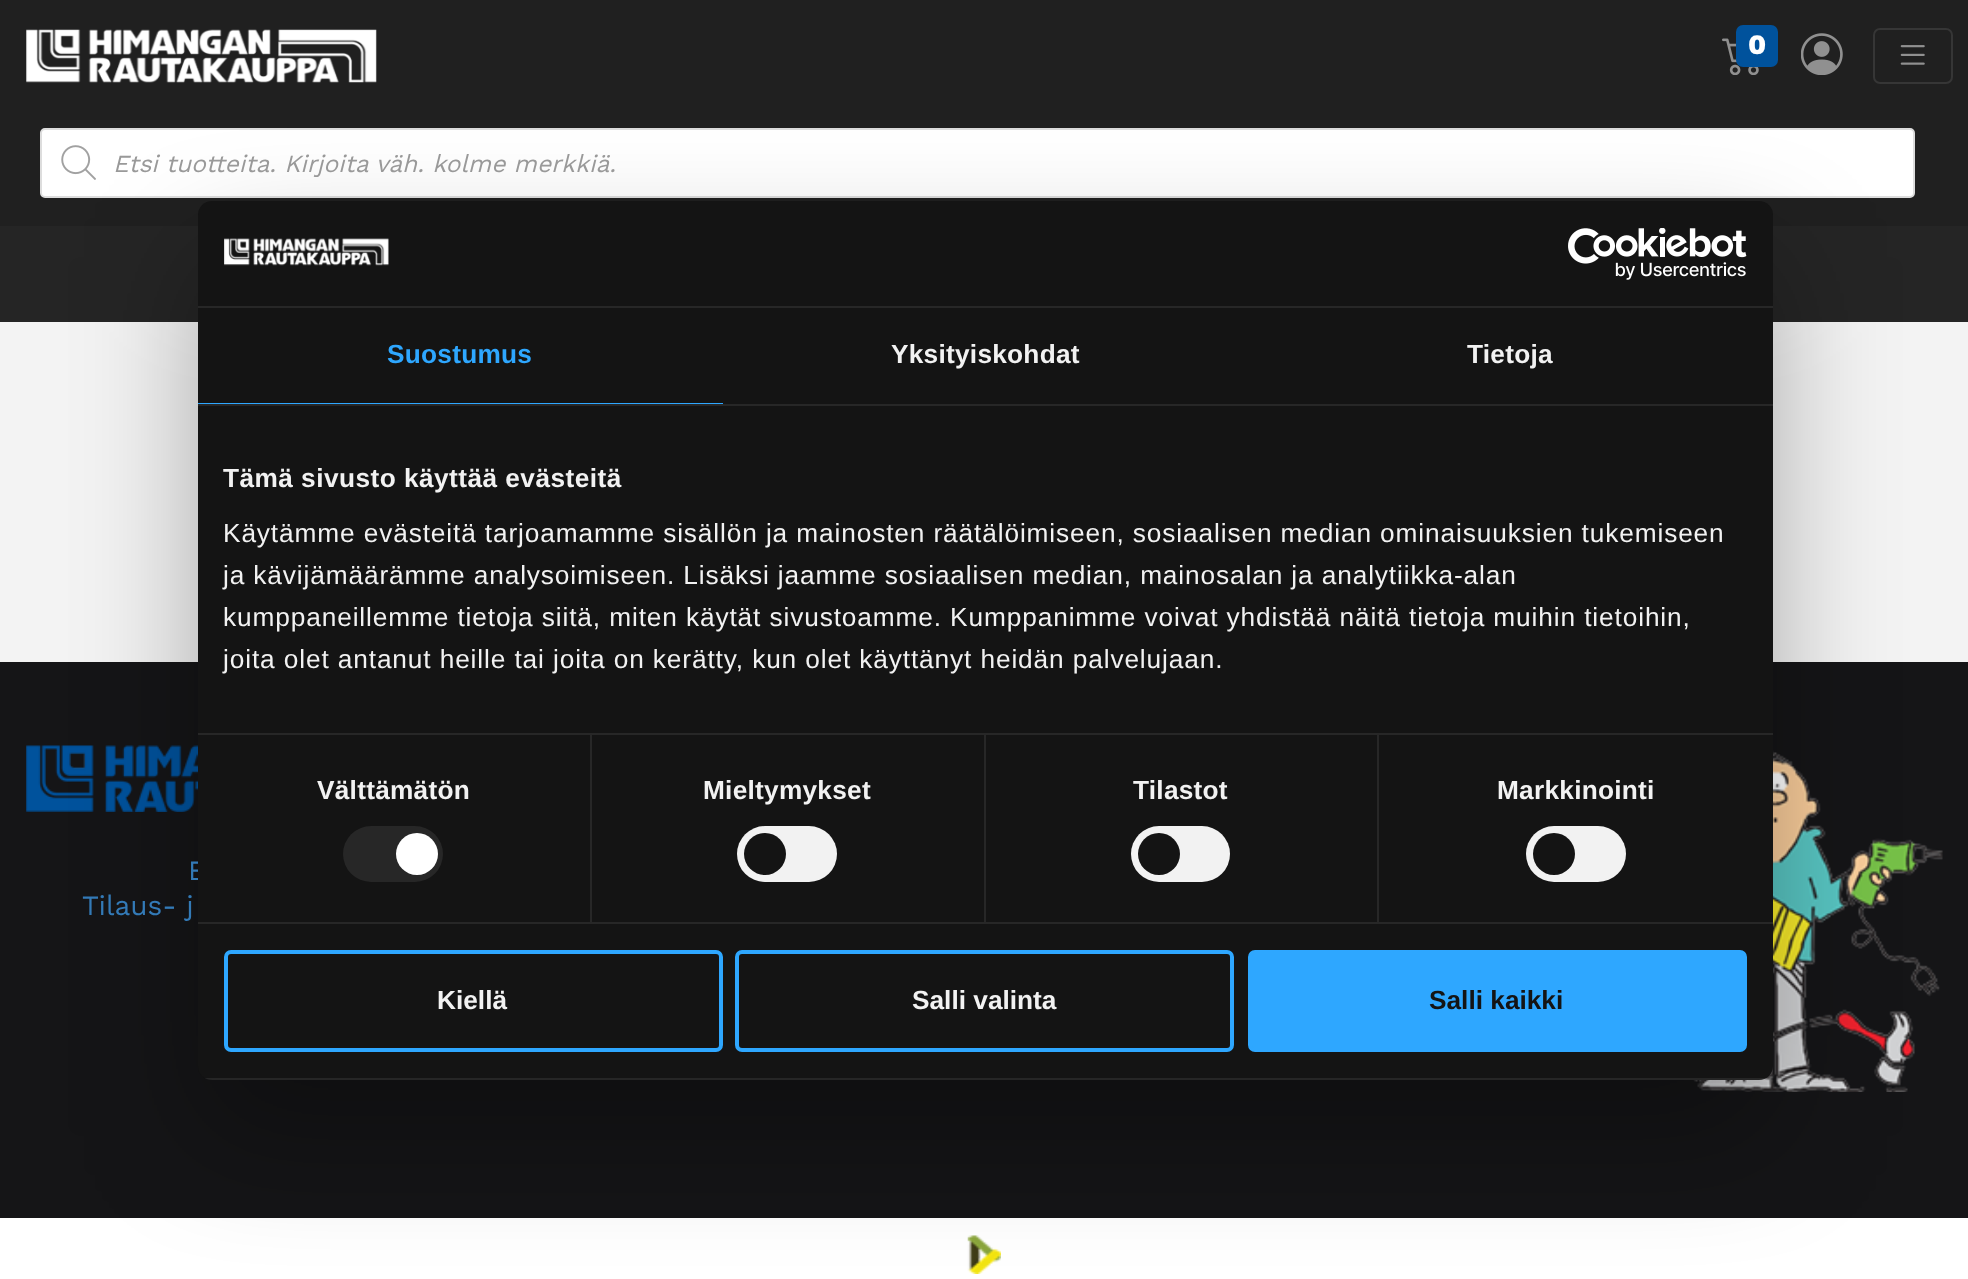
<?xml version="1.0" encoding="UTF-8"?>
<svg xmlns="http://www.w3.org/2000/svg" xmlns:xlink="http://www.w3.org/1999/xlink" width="1968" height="1279">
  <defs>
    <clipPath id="clip1"><rect x="112" y="149" width="1775" height="28" /></clipPath>
    <clipPath id="clip2"><rect x="198" y="201" width="1575" height="879" rx="14" /></clipPath>
  </defs>
  <rect width="100%" height="100%" fill="#f3f3f3" />
  <rect width="1968" height="226" fill="#202020" />
  <image x="1722" y="38" width="37" height="37" xlink:href="image1.png" />
  <rect x="1736" y="25" width="42" height="42" rx="7" fill="#00529c" />
  <image x="1801" y="33" width="42" height="42" xlink:href="image2.png" />
  <rect x="1874" y="29" width="78" height="54" rx="6" fill="none" stroke="#363636" stroke-width="2" />
  <image x="1900" y="45" width="25" height="20" xlink:href="image3.png" />
  <rect x="41" y="129" width="1873" height="68" rx="4" fill="#ffffff" stroke="#dddddd" stroke-width="2" />
  <image x="61" y="145" width="35" height="35" xlink:href="image4.png" />
  <rect y="226" width="1968" height="96" fill="#252525" />
  <image x="26" y="29" width="351" height="54" xlink:href="image5.png" />
  <rect y="662" width="1968" height="556" fill="#151517" />
  <image x="26" y="745" width="172" height="67" xlink:href="image6.png" />
  <image x="1693" y="750" width="250" height="342" xlink:href="image7.png" />
  <rect y="1218" width="1968" height="61" fill="#ffffff" />
  <image x="967" y="1235" width="34" height="39" xlink:href="image8.png" />
  <rect x="198" y="257" width="1575" height="879" rx="14" fill="#000000" fill-opacity="0.3" filter="blur(59.5px)" />
  <text x="1748" y="54" style="font-family: Work Sans; font-size: 28px; font-weight: 800; fill: #ffffff">0</text>
  <g clip-path="url(#clip1)">
    <text x="113" y="172" style="font-family: Work Sans; font-size: 24.5px; font-style: italic; fill: #999999">Etsi tuotteita. Kirjoita väh. kolme merkkiä.</text>
  </g>
  <text x="188" y="880" style="font-family: Work Sans; font-size: 28px; fill: #337ab7">E</text>
  <text x="82" y="915" style="font-family: Work Sans; font-size: 28px; fill: #337ab7">Tilaus- j</text>
  <rect x="198" y="201" width="1575" height="879" rx="14" fill="#141414" />
  <rect x="198" y="306" width="1575" height="2" fill="#272727" />
  <image x="224" y="238" width="165" height="28" xlink:href="image9.png" />
  <image x="1568" y="228" width="179" height="52" xlink:href="image10.png" />
  <rect x="198" y="404" width="1575" height="2" fill="#272727" />
  <rect x="198" y="403" width="525" height="1" fill="#2ea7ff" />
  <text x="387" y="363" style="font-family: Liberation Sans; font-size: 26.25px; font-weight: bold; letter-spacing: 0.25px; fill: #2ea7ff">Suostumus</text>
  <text x="891" y="363" style="font-family: Liberation Sans; font-size: 26.25px; font-weight: bold; letter-spacing: 0.25px; fill: #f2f2f2">Yksityiskohdat</text>
  <text x="1467" y="363" style="font-family: Liberation Sans; font-size: 26.25px; font-weight: bold; letter-spacing: 0.25px; fill: #f2f2f2">Tietoja</text>
  <rect x="198" y="733" width="1575" height="2" fill="#272727" />
  <text x="223" y="487" style="font-family: Liberation Sans; font-size: 26.25px; font-weight: bold; letter-spacing: 0.45px; fill: #f2f2f2">Tämä sivusto käyttää evästeitä</text>
  <text x="223" y="542" style="font-family: Liberation Sans; font-size: 26.25px; letter-spacing: 0.88px; fill: #f2f2f2">Käytämme evästeitä tarjoamamme sisällön ja mainosten räätälöimiseen, sosiaalisen median ominaisuuksien tukemiseen</text>
  <text x="223" y="584" style="font-family: Liberation Sans; font-size: 26.25px; letter-spacing: 0.88px; fill: #f2f2f2">ja kävijämäärämme analysoimiseen. Lisäksi jaamme sosiaalisen median, mainosalan ja analytiikka-alan</text>
  <text x="223" y="626" style="font-family: Liberation Sans; font-size: 26.25px; letter-spacing: 0.88px; fill: #f2f2f2">kumppaneillemme tietoja siitä, miten käytät sivustoamme. Kumppanimme voivat yhdistää näitä tietoja muihin tietoihin,</text>
  <text x="223" y="668" style="font-family: Liberation Sans; font-size: 26.25px; letter-spacing: 0.88px; fill: #f2f2f2">joita olet antanut heille tai joita on kerätty, kun olet käyttänyt heidän palvelujaan.</text>
  <rect x="198" y="922" width="1575" height="2" fill="#272727" />
  <rect x="590" y="735" width="2" height="187" fill="#272727" />
  <text x="317" y="799" style="font-family: Liberation Sans; font-size: 26.25px; font-weight: bold; letter-spacing: 0.25px; fill: #f2f2f2">Välttämätön</text>
  <rect x="343" y="826" width="100" height="56" rx="28" fill="#272727" />
  <circle cx="417" cy="854" r="21" fill="#ffffff" />
  <rect x="984" y="735" width="2" height="187" fill="#272727" />
  <text x="703" y="799" style="font-family: Liberation Sans; font-size: 26.25px; font-weight: bold; letter-spacing: 0.25px; fill: #f2f2f2">Mieltymykset</text>
  <rect x="737" y="826" width="100" height="56" rx="28" fill="#f2f2f2" />
  <circle cx="765" cy="854" r="21" fill="#141414" />
  <rect x="1377" y="735" width="2" height="187" fill="#272727" />
  <text x="1133" y="799" style="font-family: Liberation Sans; font-size: 26.25px; font-weight: bold; letter-spacing: 0.25px; fill: #f2f2f2">Tilastot</text>
  <rect x="1131" y="826" width="99" height="56" rx="28" fill="#f2f2f2" />
  <circle cx="1159" cy="854" r="21" fill="#141414" />
  <text x="1497" y="799" style="font-family: Liberation Sans; font-size: 26.25px; font-weight: bold; letter-spacing: 0.25px; fill: #f2f2f2">Markkinointi</text>
  <rect x="1526" y="826" width="100" height="56" rx="28" fill="#f2f2f2" />
  <circle cx="1554" cy="854" r="21" fill="#141414" />
  <g clip-path="url(#clip2)">
    <rect x="198" y="1078" width="1575" height="2" fill="#ffffff" fill-opacity="0.08" />
  </g>
  <rect x="226" y="952" width="495" height="98" rx="5" fill="none" stroke="#2ea7ff" stroke-width="4" />
  <text x="437" y="1009" style="font-family: Liberation Sans; font-size: 26.25px; font-weight: bold; fill: #f2f2f2">Kiellä</text>
  <rect x="737" y="952" width="495" height="98" rx="5" fill="none" stroke="#2ea7ff" stroke-width="4" />
  <text x="912" y="1009" style="font-family: Liberation Sans; font-size: 26.25px; font-weight: bold; fill: #f2f2f2">Salli valinta</text>
  <rect x="1250" y="952" width="495" height="98" rx="5" fill="#2ea7ff" stroke="#2ea7ff" stroke-width="4" />
  <text x="1429" y="1009" style="font-family: Liberation Sans; font-size: 26.25px; font-weight: bold; fill: #141414">Salli kaikki</text>
</svg>
